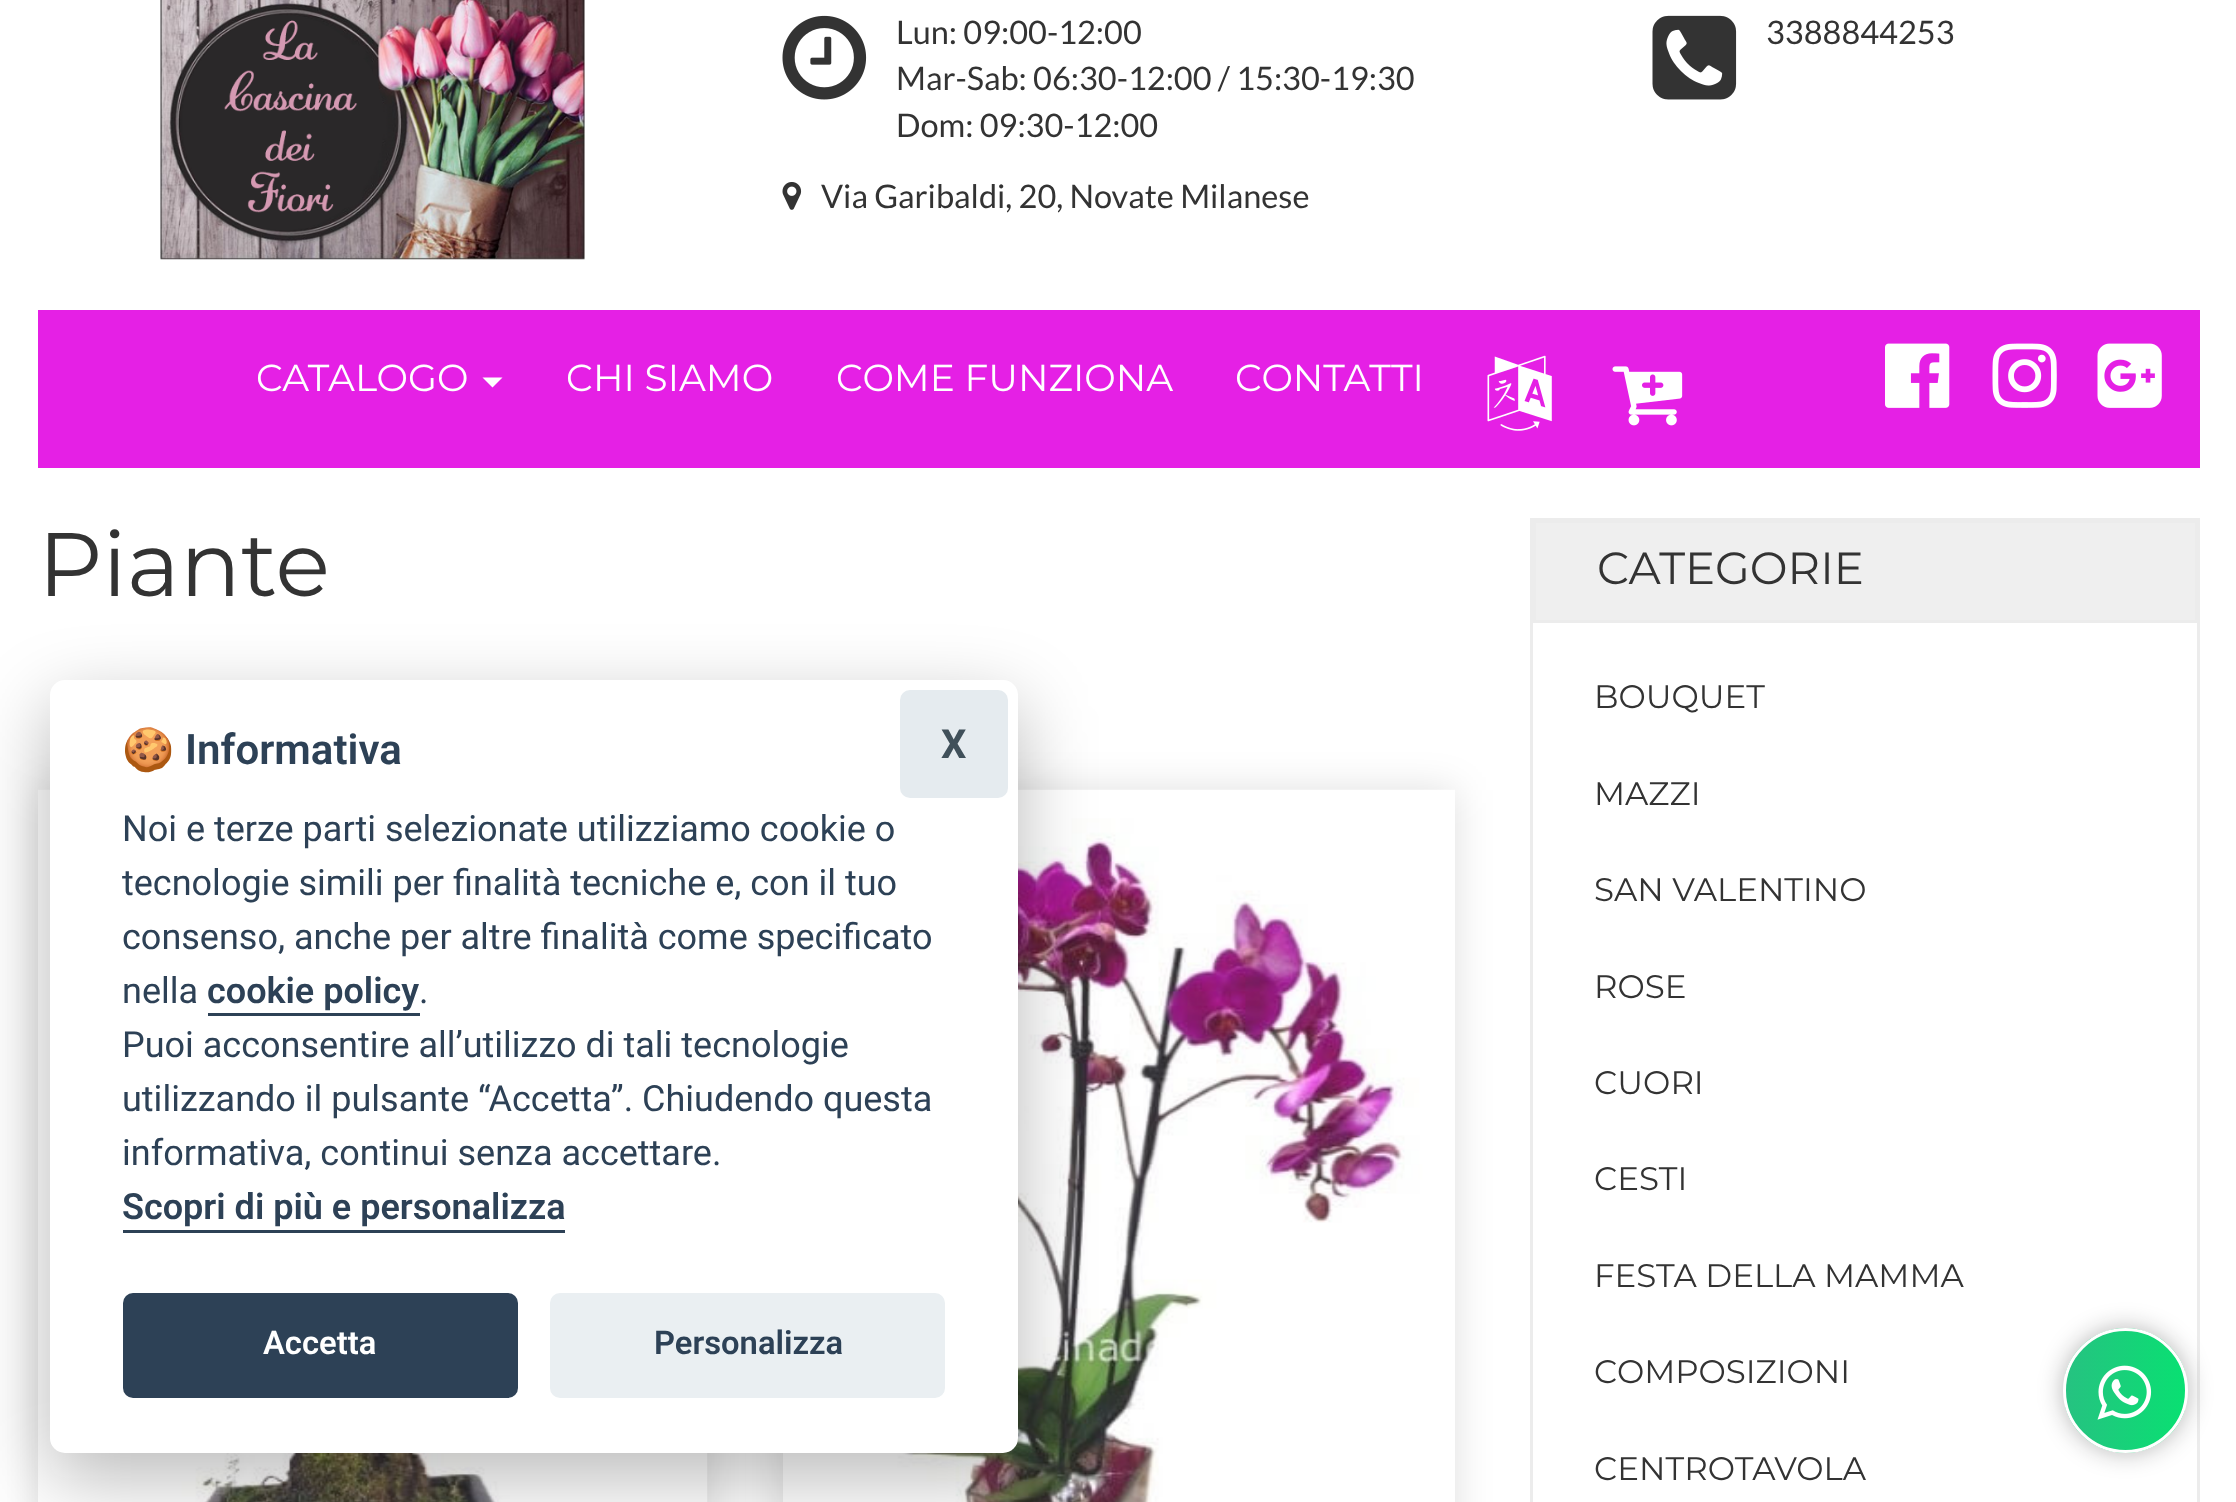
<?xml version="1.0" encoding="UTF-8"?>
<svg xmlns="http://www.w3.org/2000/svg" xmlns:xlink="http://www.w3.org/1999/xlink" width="2236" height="1502">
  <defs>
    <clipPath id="clip1"><rect x="2063" y="1328" width="125" height="125" rx="62.5" /></clipPath>
    <linearGradient id="g1" gradientUnits="userSpaceOnUse" x1="2065" y1="1390" x2="2185" y2="1390"><stop offset="0" stop-color="#26c281" /><stop offset="1" stop-color="#09e072" /></linearGradient>
  </defs>
  <rect width="100%" height="100%" fill="#ffffff" />
  <image x="160" y="0" width="425" height="260" xlink:href="image1.png" />
  <image x="782" y="15" width="85" height="85" xlink:href="image2.png" />
  <image x="1652" y="15" width="85" height="85" xlink:href="image3.png" />
  <image x="782" y="182" width="20" height="28" xlink:href="image4.png" />
  <rect x="38" y="310" width="2162" height="158" fill="#e520e5" />
  <path d="M 482.5 377.5 h 20 l -10 10 z" fill="#ffffff" />
  <image x="1487" y="355" width="65" height="76" xlink:href="image5.png" />
  <image x="1612" y="366" width="71" height="60" xlink:href="image6.png" />
  <image x="1885" y="343" width="65" height="65" xlink:href="image7.png" />
  <image x="1992" y="343" width="65" height="65" xlink:href="image8.png" />
  <image x="2097" y="343" width="65" height="65" xlink:href="image9.png" />
  <rect x="38" y="790" width="670" height="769" fill="#000000" fill-opacity="0.13" filter="blur(19px)" />
  <image x="38" y="789" width="670" height="713" xlink:href="image10.png" />
  <rect x="783" y="790" width="672" height="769" fill="#000000" fill-opacity="0.13" filter="blur(19px)" />
  <image x="783" y="789" width="672" height="713" xlink:href="image11.png" />
  <rect x="1531.5" y="519.5" width="667" height="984" fill="none" stroke="#ececec" stroke-width="3" />
  <rect x="1534.5" y="521.5" width="662" height="100" fill="#efefef" stroke="#ececec" stroke-width="3" />
  <rect x="50" y="705" width="968" height="773" rx="15" fill="#020203" fill-opacity="0.28" filter="blur(37.5px)" />
  <rect x="50" y="680" width="968" height="773" rx="15" fill="#ffffff" />
  <rect x="208" y="1013" width="212" height="3" fill="#2d4156" />
  <rect x="123" y="1230" width="442" height="3" fill="#2d4156" />
  <rect x="123" y="1293" width="395" height="105" rx="10" fill="#2d4156" />
  <rect x="550" y="1293" width="395" height="105" rx="10" fill="#eaeff2" />
  <rect x="900" y="690" width="108" height="108" rx="10" fill="#e5ebef" />
  <rect x="2063" y="1328" width="125" height="125" rx="62.5" fill="#0c0c0c" fill-opacity="0.3" filter="blur(12.5px)" />
  <g clip-path="url(#clip1)">
    <rect x="2065" y="1328" width="120" height="125" fill="url(#g1)" />
  </g>
  <circle cx="2125.5" cy="1390.5" r="61" fill="none" stroke="#ffffff" stroke-width="3" />
  <image x="2097" y="1365" width="55" height="55" xlink:href="image12.png" />
  <text x="896" y="44" style="font-family: Lato; font-size: 32.5px; fill: #333333">Lun: 09:00-12:00</text>
  <text x="896" y="90" style="font-family: Lato; font-size: 32.5px; fill: #333333">Mar-Sab: 06:30-12:00 / 15:30-19:30</text>
  <text x="896" y="137" style="font-family: Lato; font-size: 32.5px; fill: #333333">Dom: 09:30-12:00</text>
  <text x="1766" y="44" style="font-family: Lato; font-size: 32.5px; fill: #333333">3388844253</text>
  <text x="821" y="208" style="font-family: Lato; font-size: 32.5px; fill: #333333">Via Garibaldi, 20, Novate Milanese</text>
  <text x="256" y="391" style="font-family: Montserrat; font-size: 37.5px; font-weight: 100; fill: #ffffff">CATALOGO</text>
  <text x="566" y="391" style="font-family: Montserrat; font-size: 37.5px; font-weight: 100; fill: #ffffff">CHI SIAMO</text>
  <text x="836" y="391" style="font-family: Montserrat; font-size: 37.5px; font-weight: 100; fill: #ffffff">COME FUNZIONA</text>
  <text x="1235" y="391" style="font-family: Montserrat; font-size: 37.5px; font-weight: 100; fill: #ffffff">CONTATTI</text>
  <text x="38" y="596" style="font-family: Montserrat; font-size: 90px; font-weight: 100; fill: #333333">Piante</text>
  <text x="1597" y="584" style="font-family: Montserrat; font-size: 45px; font-weight: 100; fill: #333333">CATEGORIE</text>
  <text x="1594" y="708" style="font-family: Montserrat; font-size: 32.5px; font-weight: 100; fill: #333333">BOUQUET</text>
  <text x="1594" y="805" style="font-family: Montserrat; font-size: 32.5px; font-weight: 100; fill: #333333">MAZZI</text>
  <text x="1594" y="901" style="font-family: Montserrat; font-size: 32.5px; font-weight: 100; fill: #333333">SAN VALENTINO</text>
  <text x="1594" y="998" style="font-family: Montserrat; font-size: 32.5px; font-weight: 100; fill: #333333">ROSE</text>
  <text x="1594" y="1094" style="font-family: Montserrat; font-size: 32.5px; font-weight: 100; fill: #333333">CUORI</text>
  <text x="1594" y="1190" style="font-family: Montserrat; font-size: 32.5px; font-weight: 100; fill: #333333">CESTI</text>
  <text x="1594" y="1287" style="font-family: Montserrat; font-size: 32.5px; font-weight: 100; fill: #333333">FESTA DELLA MAMMA</text>
  <text x="1594" y="1383" style="font-family: Montserrat; font-size: 32.5px; font-weight: 100; fill: #333333">COMPOSIZIONI</text>
  <text x="1594" y="1480" style="font-family: Montserrat; font-size: 32.5px; font-weight: 100; fill: #333333">CENTROTAVOLA</text>
  <text x="122" y="764" style="font-family: Noto Color Emoji; font-size: 42px; font-weight: bold; fill: #2d4156">🍪</text>
  <text x="185" y="764" style="font-family: Roboto; font-size: 42px; font-weight: 600; fill: #2d4156">Informativa</text>
  <text x="122" y="841" style="font-family: Roboto; font-size: 36px; fill: #2d4156">Noi e terze parti selezionate utilizziamo cookie o</text>
  <text x="122" y="895" style="font-family: Roboto; font-size: 36px; fill: #2d4156">tecnologie simili per finalità tecniche e, con il tuo</text>
  <text x="122" y="949" style="font-family: Roboto; font-size: 36px; fill: #2d4156">consenso, anche per altre finalità come specificato</text>
  <text x="122" y="1003" style="font-family: Roboto; font-size: 36px; fill: #2d4156">nella</text>
  <text x="207" y="1003" style="font-family: Roboto; font-size: 36px; font-weight: 600; fill: #2d4156">cookie policy</text>
  <text x="419" y="1003" style="font-family: Roboto; font-size: 36px; fill: #2d4156">.</text>
  <text x="122" y="1057" style="font-family: Roboto; font-size: 36px; fill: #2d4156">Puoi acconsentire all’utilizzo di tali tecnologie</text>
  <text x="122" y="1111" style="font-family: Roboto; font-size: 36px; fill: #2d4156">utilizzando il pulsante “Accetta”. Chiudendo questa</text>
  <text x="122" y="1165" style="font-family: Roboto; font-size: 36px; fill: #2d4156">informativa, continui senza accettare.</text>
  <text x="122" y="1219" style="font-family: Roboto; font-size: 36px; font-weight: 600; fill: #2d4156">Scopri di più e personalizza</text>
  <text x="263" y="1354" style="font-family: Roboto; font-size: 32.75px; font-weight: 600; fill: #ffffff">Accetta</text>
  <text x="654" y="1354" style="font-family: Roboto; font-size: 32.75px; font-weight: 600; fill: #2d4156">Personalizza</text>
  <text x="941" y="758" style="font-family: Roboto; font-size: 40px; font-weight: bold; fill: #40505a">X</text>
</svg>
